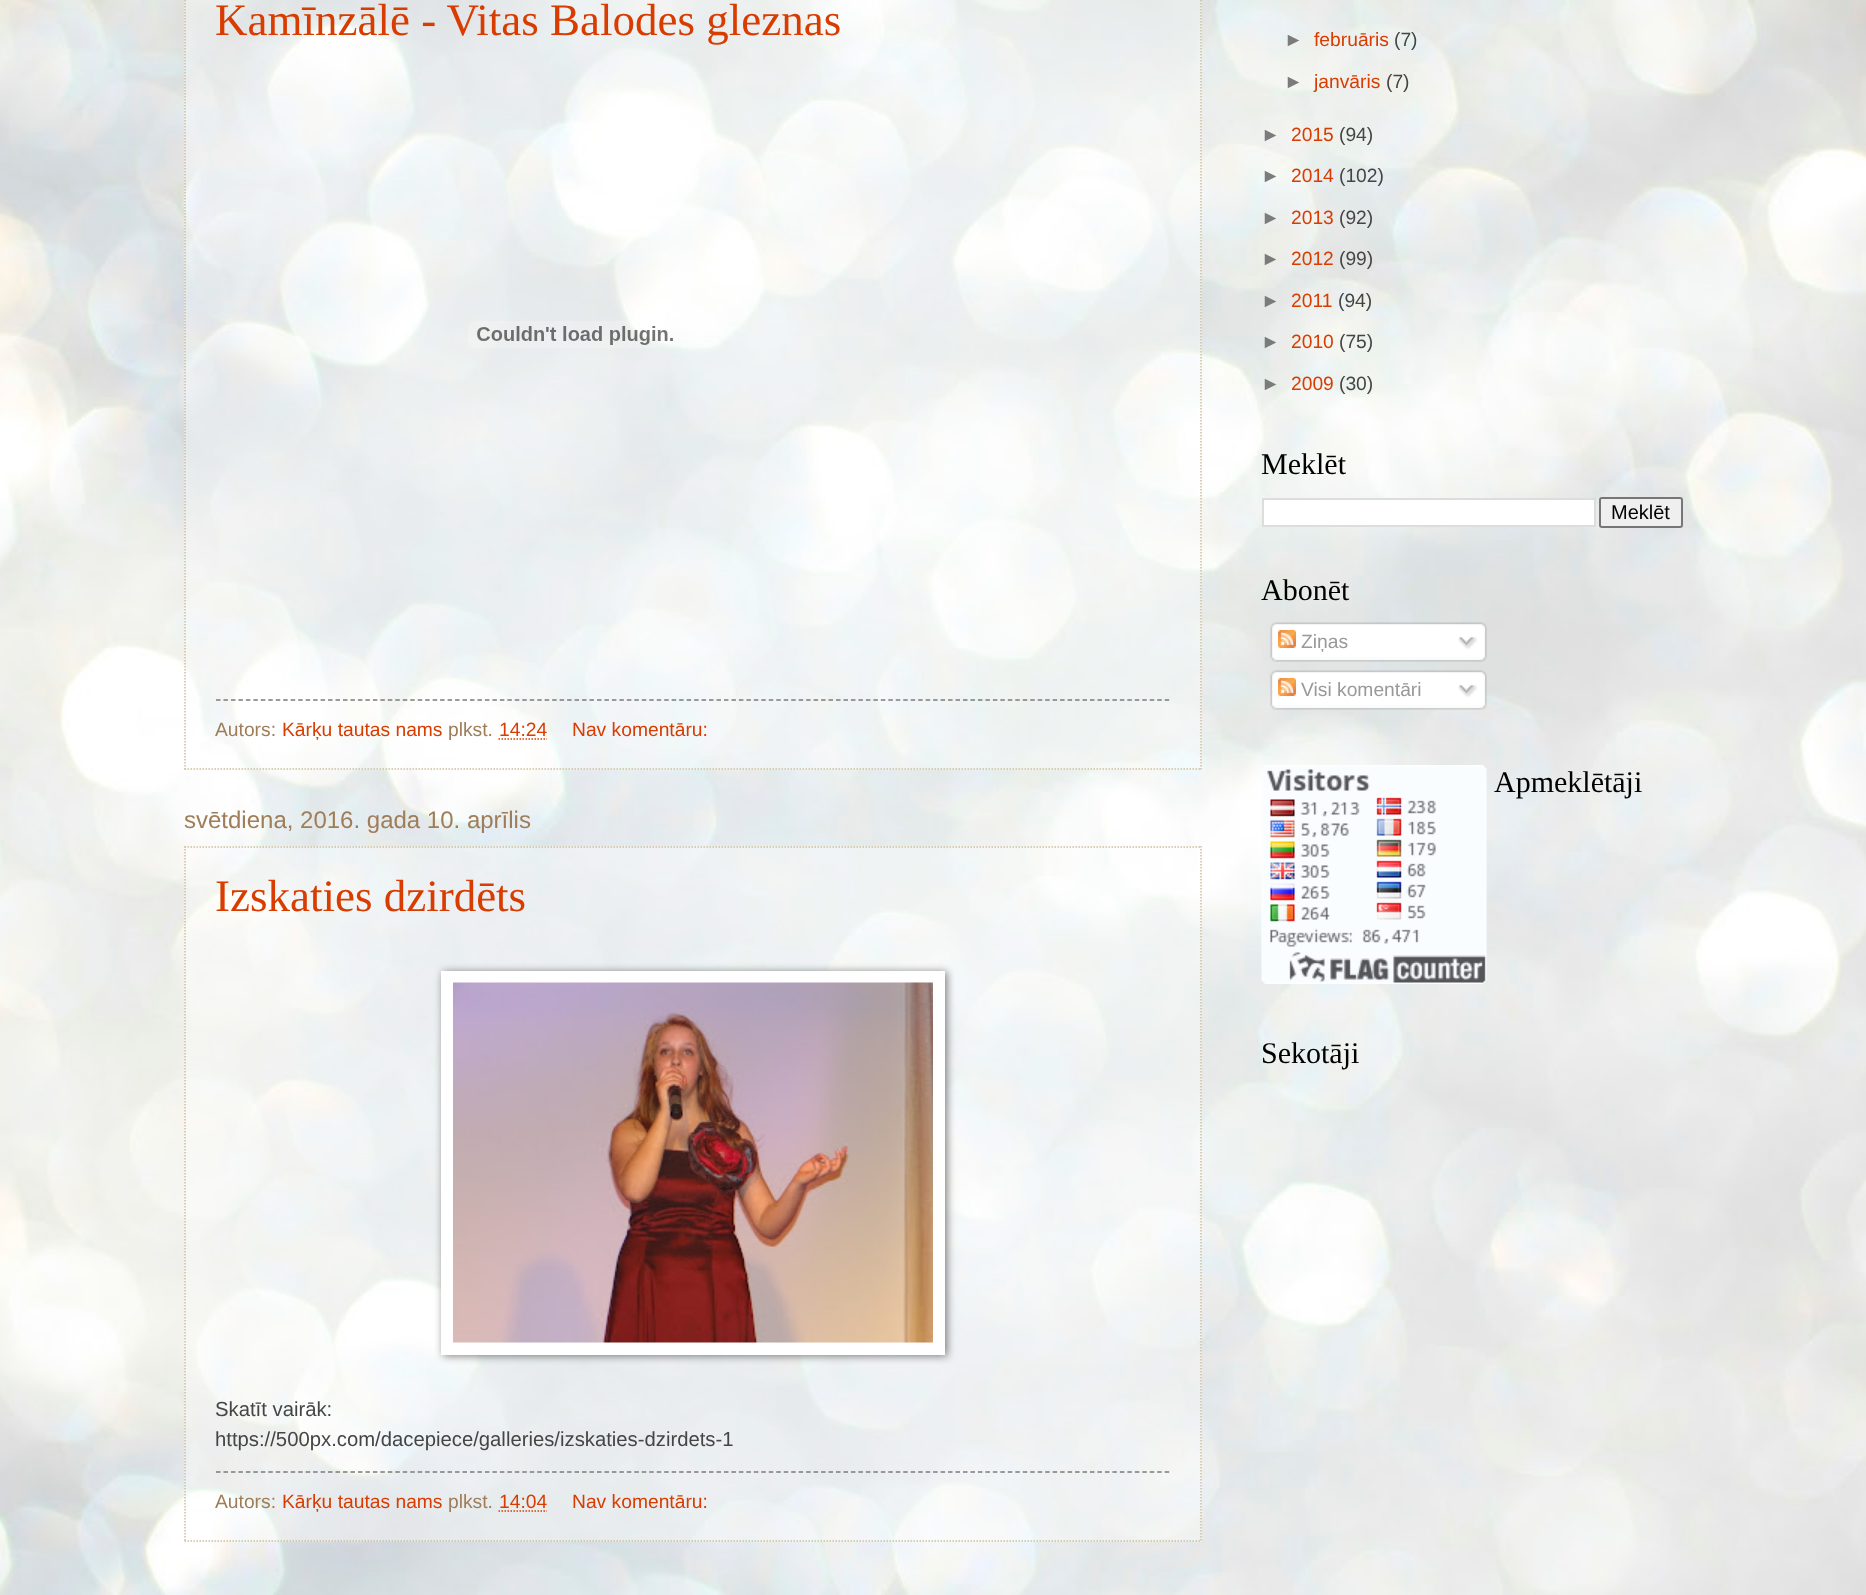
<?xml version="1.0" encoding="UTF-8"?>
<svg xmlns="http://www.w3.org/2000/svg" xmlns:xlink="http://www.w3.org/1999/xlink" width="1866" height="1595">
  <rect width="100%" height="100%" fill="#ffffff" />
  <image x="0" y="0" width="1866" height="1595" xlink:href="image1.png" />
  <rect x="184" width="1018" height="770" fill="#ffffff" fill-opacity="0.4" />
  <path d="M 1201 -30 v 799.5" fill="none" stroke="#cdbe9c" stroke-width="1.5" stroke-dasharray="1.5 1.5" />
  <path d="M 184.5 769 h 1017" fill="none" stroke="#cdbe9c" stroke-width="1.5" stroke-dasharray="1.5 1.5" />
  <path d="M 185 -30 v 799.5" fill="none" stroke="#cdbe9c" stroke-width="1.5" stroke-dasharray="1.5 1.5" />
  <image x="468" y="321" width="205" height="27" xlink:href="image2.png" />
  <path d="M 216 700 h 954" fill="none" stroke="#7b7b7b" stroke-width="1.5" stroke-dasharray="4.5 2.97" />
  <path d="M 498.5 739 h 48.5" fill="none" stroke="#d83c00" stroke-width="1.5" stroke-dasharray="1.5 1.5" />
  <rect x="184" y="846" width="1018" height="696" fill="#ffffff" fill-opacity="0.4" />
  <path d="M 184.5 847 h 1017" fill="none" stroke="#cdbe9c" stroke-width="1.5" stroke-dasharray="1.5 1.5" />
  <path d="M 1201 846 v 696" fill="none" stroke="#cdbe9c" stroke-width="1.5" stroke-dasharray="1.5 1.5" />
  <path d="M 184.5 1541 h 1017" fill="none" stroke="#cdbe9c" stroke-width="1.5" stroke-dasharray="1.5 1.5" />
  <path d="M 185 846 v 696" fill="none" stroke="#cdbe9c" stroke-width="1.5" stroke-dasharray="1.5 1.5" />
  <rect x="443" y="972" width="504" height="384" fill="#000000" fill-opacity="0.5" filter="blur(4px)" />
  <rect x="441" y="971" width="504" height="384" fill="#ffffff" />
  <image x="453" y="982" width="480" height="361" xlink:href="image3.png" />
  <path d="M 216 1472 h 954" fill="none" stroke="#7b7b7b" stroke-width="1.5" stroke-dasharray="4.5 2.97" />
  <path d="M 498.5 1511 h 48.5" fill="none" stroke="#d83c00" stroke-width="1.5" stroke-dasharray="1.5 1.5" />
  <rect x="1263" y="499" width="332" height="27" fill="#ffffff" stroke="#dddddd" stroke-width="2" />
  <rect x="1600" y="498" width="82" height="29" rx="2" fill="#efefef" stroke="#767676" stroke-width="2" />
  <image x="1270" y="622" width="217" height="35" xlink:href="image4.png" />
  <image x="1278" y="630" width="18" height="18" xlink:href="image5.png" />
  <image x="1458" y="636" width="20" height="14" xlink:href="image6.png" />
  <image x="1270" y="657" width="217" height="5" xlink:href="image7.png" />
  <image x="1270" y="670" width="217" height="35" xlink:href="image8.png" />
  <image x="1278" y="678" width="18" height="18" xlink:href="image5.png" />
  <image x="1458" y="684" width="20" height="14" xlink:href="image6.png" />
  <image x="1270" y="705" width="217" height="5" xlink:href="image9.png" />
  <image x="1261" y="765" width="226" height="219" xlink:href="image10.png" />
  <text x="215" y="35" style="font-family: Liberation Serif; font-size: 45px; fill: #d83c00">Kamīnzālē - Vitas Balodes gleznas</text>
  <text x="215" y="736" style="font-family: Liberation Sans; font-size: 19.25px; fill: #9f7d58">Autors:</text>
  <text x="282" y="736" style="font-family: Liberation Sans; font-size: 19.25px; fill: #d83c00">Kārķu tautas nams</text>
  <text x="448" y="736" style="font-family: Liberation Sans; font-size: 19.25px; fill: #9f7d58">plkst.</text>
  <text x="499" y="736" style="font-family: Liberation Sans; font-size: 19.25px; fill: #d83c00">14:24</text>
  <text x="572" y="736" style="font-family: Liberation Sans; font-size: 19.25px; fill: #d83c00">Nav komentāru:</text>
  <text x="184" y="828" style="font-family: Liberation Sans; font-size: 24px; fill: #9f7d58">svētdiena, 2016. gada 10. aprīlis</text>
  <text x="215" y="911" style="font-family: Liberation Serif; font-size: 45px; fill: #d83c00">Izskaties dzirdēts</text>
  <text x="215" y="1416" style="font-family: Liberation Sans; font-size: 20.3px; fill: #454545">Skatīt vairāk:</text>
  <text x="215" y="1446" style="font-family: Liberation Sans; font-size: 20.3px; fill: #454545">https://500px.com/dacepiece/galleries/izskaties-dzirdets-1</text>
  <text x="215" y="1508" style="font-family: Liberation Sans; font-size: 19.25px; fill: #9f7d58">Autors:</text>
  <text x="282" y="1508" style="font-family: Liberation Sans; font-size: 19.25px; fill: #d83c00">Kārķu tautas nams</text>
  <text x="448" y="1508" style="font-family: Liberation Sans; font-size: 19.25px; fill: #9f7d58">plkst.</text>
  <text x="499" y="1508" style="font-family: Liberation Sans; font-size: 19.25px; fill: #d83c00">14:04</text>
  <text x="572" y="1508" style="font-family: Liberation Sans; font-size: 19.25px; fill: #d83c00">Nav komentāru:</text>
  <text x="1284" y="46" style="font-family: Liberation Sans; font-size: 19.25px; fill: #7b7b7b">►</text>
  <text x="1314" y="46" style="font-family: Liberation Sans; font-size: 19.25px; fill: #d83c00">februāris</text>
  <text x="1394" y="46" style="font-family: Liberation Sans; font-size: 19.25px; fill: #454545">(7)</text>
  <text x="1284" y="88" style="font-family: Liberation Sans; font-size: 19.25px; fill: #7b7b7b">►</text>
  <text x="1314" y="88" style="font-family: Liberation Sans; font-size: 19.25px; fill: #d83c00">janvāris</text>
  <text x="1386" y="88" style="font-family: Liberation Sans; font-size: 19.25px; fill: #454545">(7)</text>
  <text x="1261" y="141" style="font-family: Liberation Sans; font-size: 19.25px; fill: #7b7b7b">►</text>
  <text x="1291" y="141" style="font-family: Liberation Sans; font-size: 19.25px; fill: #d83c00">2015</text>
  <text x="1339" y="141" style="font-family: Liberation Sans; font-size: 19.25px; fill: #454545">(94)</text>
  <text x="1261" y="182" style="font-family: Liberation Sans; font-size: 19.25px; fill: #7b7b7b">►</text>
  <text x="1291" y="182" style="font-family: Liberation Sans; font-size: 19.25px; fill: #d83c00">2014</text>
  <text x="1339" y="182" style="font-family: Liberation Sans; font-size: 19.25px; fill: #454545">(102)</text>
  <text x="1261" y="224" style="font-family: Liberation Sans; font-size: 19.25px; fill: #7b7b7b">►</text>
  <text x="1291" y="224" style="font-family: Liberation Sans; font-size: 19.25px; fill: #d83c00">2013</text>
  <text x="1339" y="224" style="font-family: Liberation Sans; font-size: 19.25px; fill: #454545">(92)</text>
  <text x="1261" y="265" style="font-family: Liberation Sans; font-size: 19.25px; fill: #7b7b7b">►</text>
  <text x="1291" y="265" style="font-family: Liberation Sans; font-size: 19.25px; fill: #d83c00">2012</text>
  <text x="1339" y="265" style="font-family: Liberation Sans; font-size: 19.25px; fill: #454545">(99)</text>
  <text x="1261" y="307" style="font-family: Liberation Sans; font-size: 19.25px; fill: #7b7b7b">►</text>
  <text x="1291" y="307" style="font-family: Liberation Sans; font-size: 19.25px; fill: #d83c00">2011</text>
  <text x="1338" y="307" style="font-family: Liberation Sans; font-size: 19.25px; fill: #454545">(94)</text>
  <text x="1261" y="348" style="font-family: Liberation Sans; font-size: 19.25px; fill: #7b7b7b">►</text>
  <text x="1291" y="348" style="font-family: Liberation Sans; font-size: 19.25px; fill: #d83c00">2010</text>
  <text x="1339" y="348" style="font-family: Liberation Sans; font-size: 19.25px; fill: #454545">(75)</text>
  <text x="1261" y="390" style="font-family: Liberation Sans; font-size: 19.25px; fill: #7b7b7b">►</text>
  <text x="1291" y="390" style="font-family: Liberation Sans; font-size: 19.25px; fill: #d83c00">2009</text>
  <text x="1339" y="390" style="font-family: Liberation Sans; font-size: 19.25px; fill: #454545">(30)</text>
  <text x="1261" y="474" style="font-family: Liberation Serif; font-size: 30px; fill: #000000">Meklēt</text>
  <text x="1611" y="519" style="font-family: Liberation Sans; font-size: 20px; fill: #000000">Meklēt</text>
  <text x="1261" y="600" style="font-family: Liberation Serif; font-size: 30px; fill: #000000">Abonēt</text>
  <text x="1301" y="648" style="font-family: Liberation Sans; font-size: 19.25px; fill: #999999">Ziņas</text>
  <text x="1301" y="696" style="font-family: Liberation Sans; font-size: 19.25px; fill: #999999">Visi komentāri</text>
  <text x="1494" y="792" style="font-family: Liberation Serif; font-size: 30px; fill: #000000">Apmeklētāji</text>
  <text x="1261" y="1063" style="font-family: Liberation Serif; font-size: 30px; fill: #000000">Sekotāji</text>
</svg>
